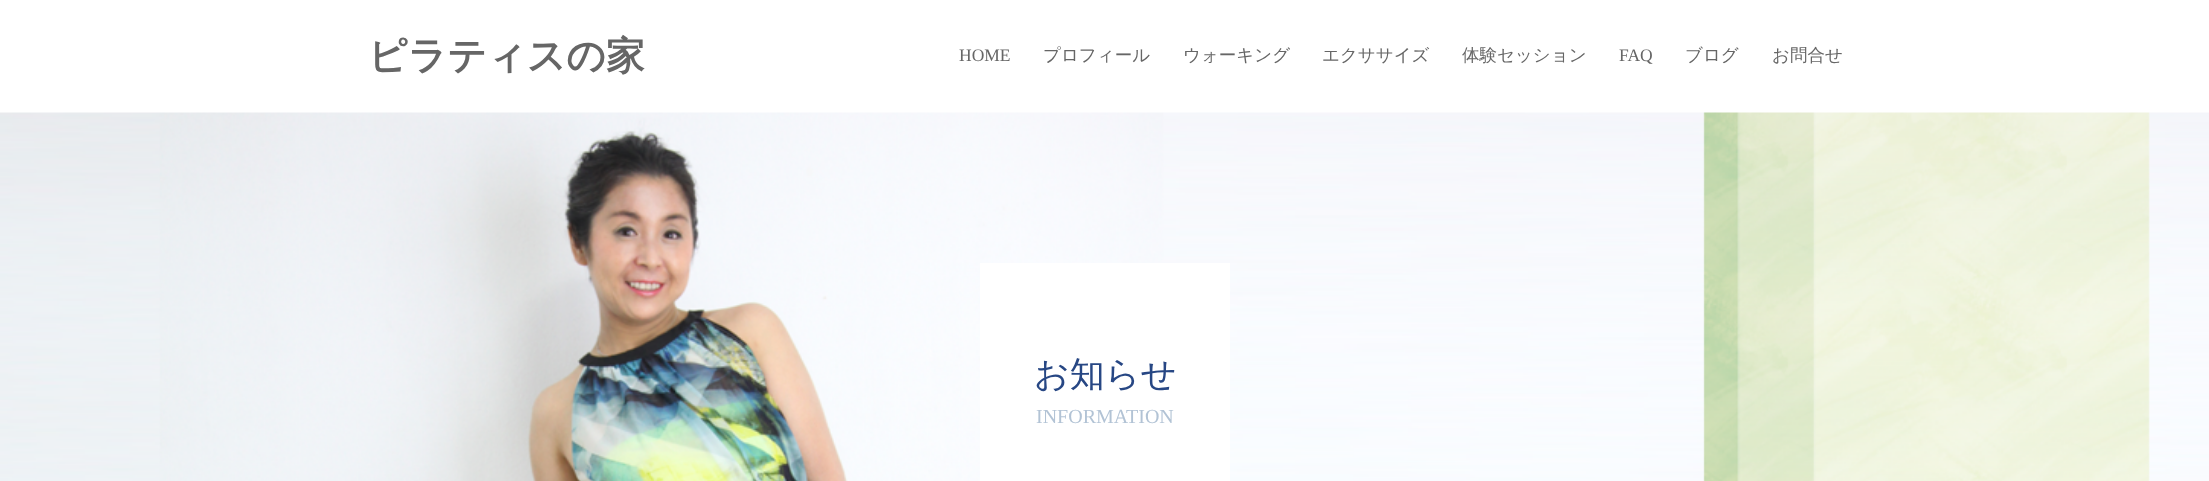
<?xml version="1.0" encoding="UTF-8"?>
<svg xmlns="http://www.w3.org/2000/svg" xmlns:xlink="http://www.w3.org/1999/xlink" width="2209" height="481">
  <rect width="100%" height="100%" fill="#ffffff" />
  <image x="0" y="112" width="2209" height="369" xlink:href="image1.png" />
  <rect x="980" y="263" width="250" height="218" fill="#ffffff" />
  <text x="368" y="69" style="font-family: WenQuanYi Zen Hei; font-size: 38.75px; font-weight: bold; fill: #666666">ピラティスの家</text>
  <text x="959" y="61" style="font-family: Liberation Serif; font-size: 17.5px; fill: #666666">HOME</text>
  <text x="1043" y="61" style="font-family: WenQuanYi Zen Hei; font-size: 17.5px; font-weight: 500; fill: #666666">プロフィール</text>
  <text x="1183" y="61" style="font-family: WenQuanYi Zen Hei; font-size: 17.5px; font-weight: 500; fill: #666666">ウォーキング</text>
  <text x="1322" y="61" style="font-family: WenQuanYi Zen Hei; font-size: 17.5px; font-weight: 500; fill: #666666">エクササイズ</text>
  <text x="1462" y="61" style="font-family: WenQuanYi Zen Hei; font-size: 17.5px; font-weight: 500; fill: #666666">体験セッション</text>
  <text x="1619" y="61" style="font-family: Liberation Serif; font-size: 17.5px; fill: #666666">FAQ</text>
  <text x="1685" y="61" style="font-family: WenQuanYi Zen Hei; font-size: 17.5px; font-weight: 500; fill: #666666">ブログ</text>
  <text x="1772" y="61" style="font-family: WenQuanYi Zen Hei; font-size: 17.5px; font-weight: 500; fill: #666666">お問合せ</text>
  <text x="1034" y="386" style="font-family: WenQuanYi Zen Hei; font-size: 35px; font-weight: 500; fill: #274784">お知らせ</text>
  <text x="1036" y="423" style="font-family: Liberation Serif; font-size: 20px; fill: #b2c3d5">INFORMATION</text>
</svg>
